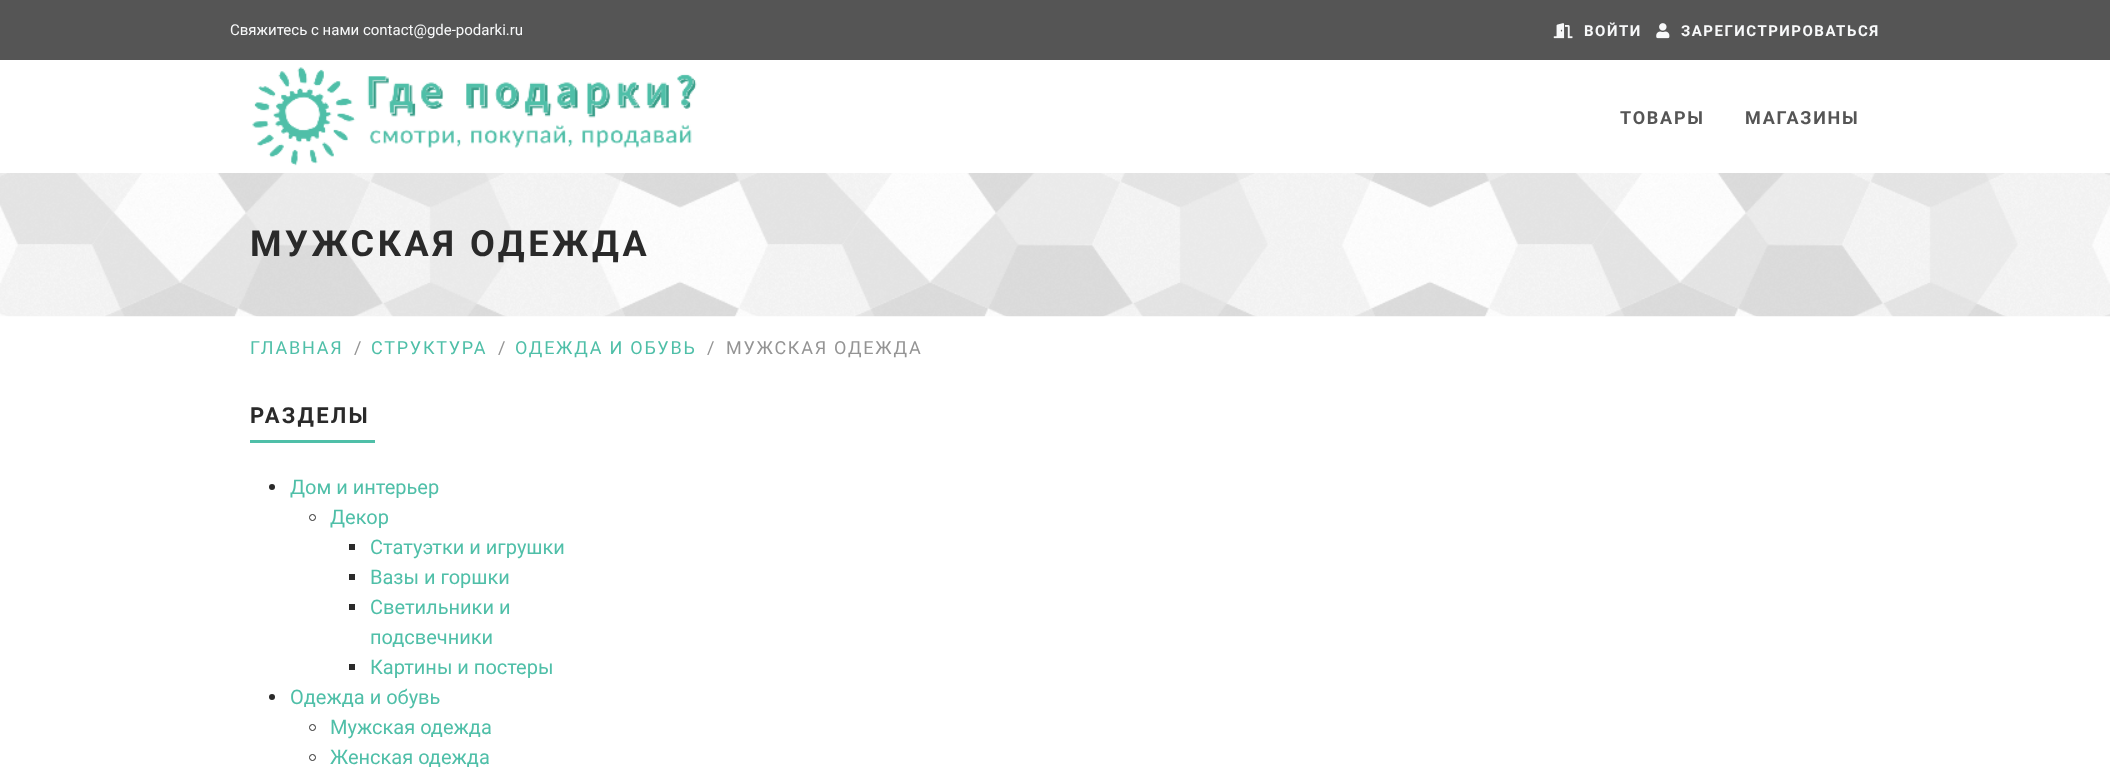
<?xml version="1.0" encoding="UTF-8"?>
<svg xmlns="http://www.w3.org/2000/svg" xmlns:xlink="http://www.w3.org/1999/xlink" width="2110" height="770">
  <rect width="100%" height="100%" fill="#ffffff" />
  <rect width="2110" height="60" fill="#555555" />
  <image x="1553" y="23" width="20" height="16" xlink:href="image1.png" />
  <image x="1656" y="23" width="14" height="16" xlink:href="image2.png" />
  <image x="252" y="67" width="445" height="99" xlink:href="image3.png" />
  <image x="0" y="173" width="2110" height="144" xlink:href="image4.png" />
  <rect x="250" y="440" width="125" height="3" fill="#4fbfa8" />
  <circle cx="272" cy="487" r="3" fill="#2a2a2a" />
  <circle cx="312.5" cy="517.5" r="3" fill="none" stroke="#2a2a2a" />
  <rect x="349" y="544" width="6" height="6" fill="#2a2a2a" />
  <rect x="349" y="574" width="6" height="6" fill="#2a2a2a" />
  <rect x="349" y="604" width="6" height="6" fill="#2a2a2a" />
  <rect x="349" y="664" width="6" height="6" fill="#2a2a2a" />
  <circle cx="272" cy="697" r="3" fill="#2a2a2a" />
  <circle cx="312.5" cy="727.5" r="3" fill="none" stroke="#2a2a2a" />
  <circle cx="312.5" cy="757.5" r="3" fill="none" stroke="#2a2a2a" />
  <text x="230" y="35" style="font-family: Roboto; font-size: 15px; fill: #f8f9fa">Свяжитесь с нами contact@gde-podarki.ru</text>
  <text x="1584" y="36" style="font-family: Roboto; font-size: 15px; font-weight: bold; letter-spacing: 1.5px; fill: #f8f9fa">ВОЙТИ</text>
  <text x="1681" y="36" style="font-family: Roboto; font-size: 15px; font-weight: bold; letter-spacing: 1.5px; fill: #f8f9fa">ЗАРЕГИСТРИРОВАТЬСЯ</text>
  <text x="1620" y="124" style="font-family: Roboto; font-size: 18px; font-weight: bold; letter-spacing: 1.75px; fill: #555555">ТОВАРЫ</text>
  <text x="1745" y="124" style="font-family: Roboto; font-size: 18px; font-weight: bold; letter-spacing: 1.75px; fill: #555555">МАГАЗИНЫ</text>
  <text x="250" y="256" style="font-family: Roboto; font-size: 36px; font-weight: bold; letter-spacing: 3.6px; fill: #2a2a2a">МУЖСКАЯ ОДЕЖДА</text>
  <text x="250" y="354" style="font-family: Roboto; font-size: 18px; letter-spacing: 1.75px; fill: #4fbfa8">ГЛАВНАЯ</text>
  <text x="354" y="354" style="font-family: Roboto; font-size: 18px; fill: #949494">/</text>
  <text x="371" y="354" style="font-family: Roboto; font-size: 18px; letter-spacing: 1.75px; fill: #4fbfa8">СТРУКТУРА</text>
  <text x="498" y="354" style="font-family: Roboto; font-size: 18px; fill: #949494">/</text>
  <text x="515" y="354" style="font-family: Roboto; font-size: 18px; letter-spacing: 1.75px; fill: #4fbfa8">ОДЕЖДА И ОБУВЬ</text>
  <text x="707" y="354" style="font-family: Roboto; font-size: 18px; letter-spacing: 1.75px; fill: #949494">/</text>
  <text x="726" y="354" style="font-family: Roboto; font-size: 18px; letter-spacing: 1.75px; fill: #949494">МУЖСКАЯ ОДЕЖДА</text>
  <text x="250" y="423" style="font-family: Roboto; font-size: 22px; font-weight: bold; letter-spacing: 2.25px; fill: #2a2a2a">РАЗДЕЛЫ</text>
  <text x="290" y="494" style="font-family: Roboto; font-size: 20px; fill: #4fbfa8">Дом и интерьер</text>
  <text x="330" y="524" style="font-family: Roboto; font-size: 20px; fill: #4fbfa8">Декор</text>
  <text x="370" y="554" style="font-family: Roboto; font-size: 20px; fill: #4fbfa8">Статуэтки и игрушки</text>
  <text x="370" y="584" style="font-family: Roboto; font-size: 20px; fill: #4fbfa8">Вазы и горшки</text>
  <text x="370" y="614" style="font-family: Roboto; font-size: 20px; fill: #4fbfa8">Светильники и</text>
  <text x="370" y="644" style="font-family: Roboto; font-size: 20px; fill: #4fbfa8">подсвечники</text>
  <text x="370" y="674" style="font-family: Roboto; font-size: 20px; fill: #4fbfa8">Картины и постеры</text>
  <text x="290" y="704" style="font-family: Roboto; font-size: 20px; fill: #4fbfa8">Одежда и обувь</text>
  <text x="330" y="734" style="font-family: Roboto; font-size: 20px; fill: #4fbfa8">Мужская одежда</text>
  <text x="330" y="764" style="font-family: Roboto; font-size: 20px; fill: #4fbfa8">Женская одежда</text>
</svg>
